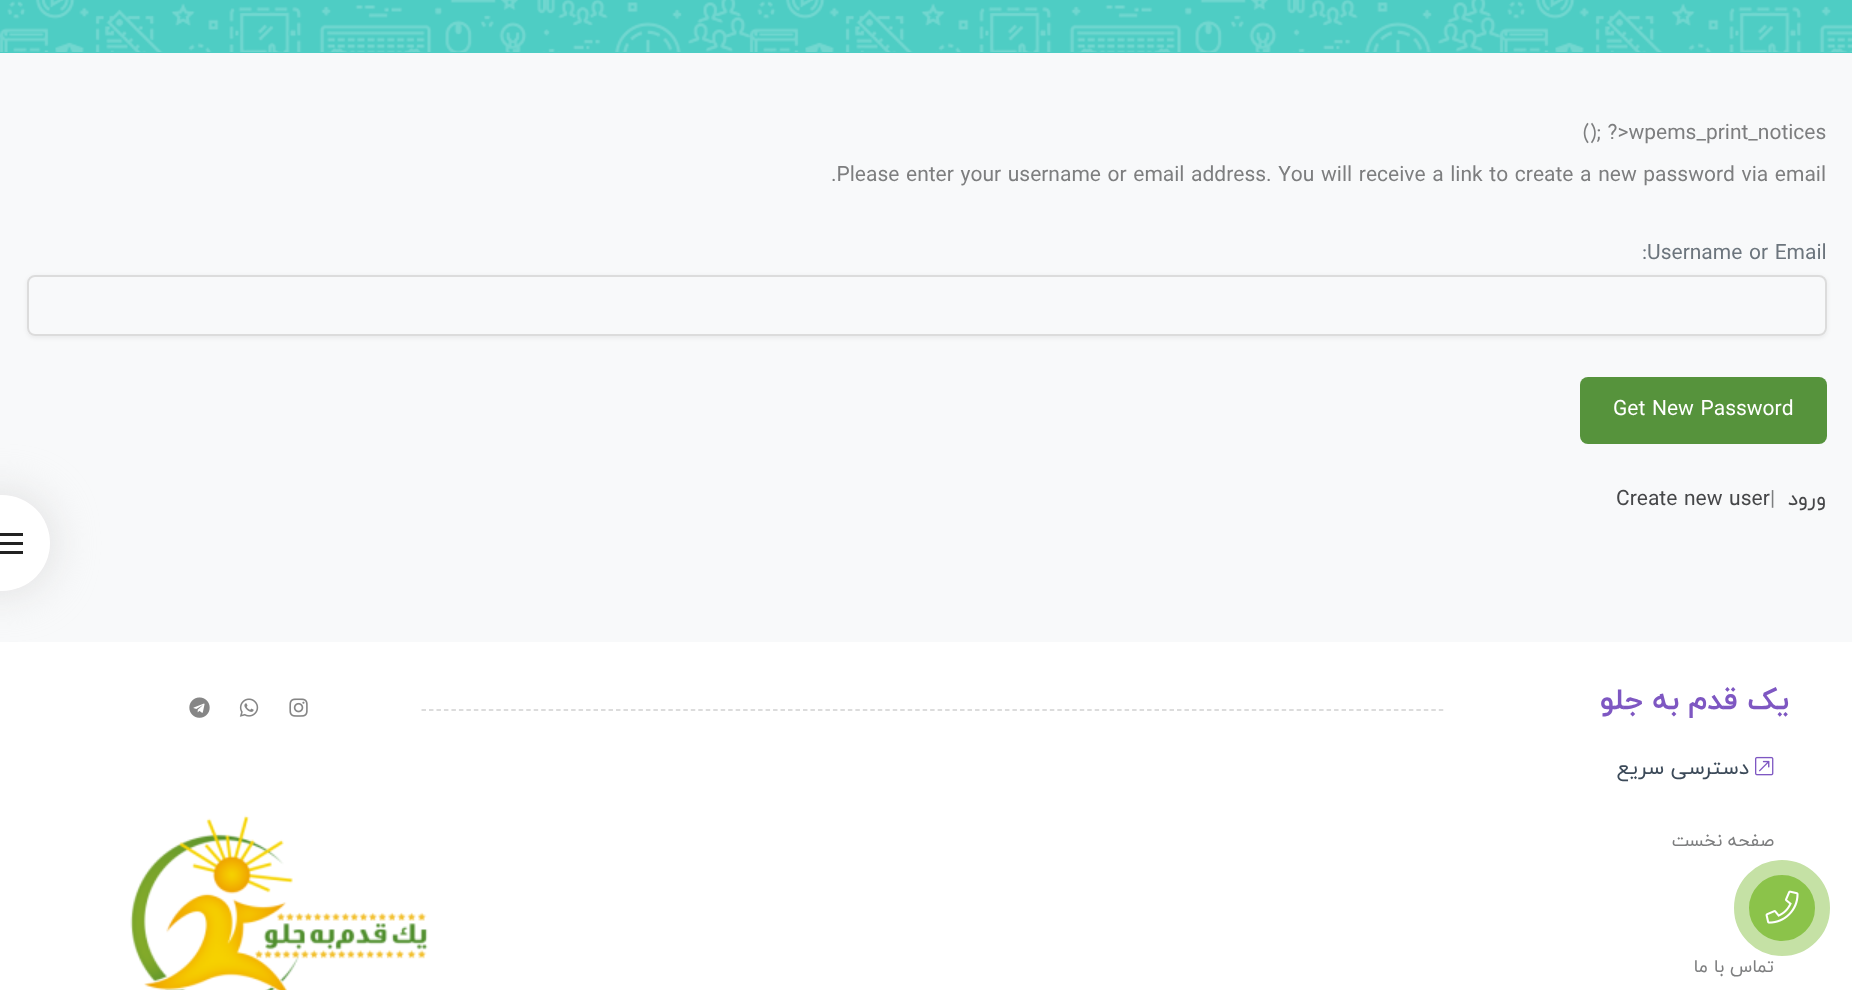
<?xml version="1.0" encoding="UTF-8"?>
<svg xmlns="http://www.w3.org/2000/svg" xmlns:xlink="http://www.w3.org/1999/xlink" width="1852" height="990">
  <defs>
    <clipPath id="clip1"><path d="M 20 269 h 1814 v 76 h -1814 z m 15 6 h 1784 c 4.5 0 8 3.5 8 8 v 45 c 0 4.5 -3.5 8 -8 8 h -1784 c -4.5 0 -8 -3.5 -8 -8 v -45 c 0 -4.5 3.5 -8 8 -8 z" clip-rule="evenodd" /></clipPath>
  </defs>
  <rect width="100%" height="100%" fill="#ffffff" />
  <rect y="53" width="1852" height="589" fill="#f8f9fa" />
  <rect x="-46" y="495" width="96" height="96" rx="48" fill="#dcdcdc" filter="blur(22.5px)" />
  <circle cx="2" cy="543" r="48" fill="#ffffff" />
  <rect y="533" width="23" height="3" fill="#222222" />
  <rect y="542" width="23" height="3" fill="#222222" />
  <rect y="551" width="23" height="3" fill="#222222" />
  <rect width="1852" height="53" fill="#4ecdc4" />
  <image x="0" y="0" width="1852" height="52" xlink:href="image1.png" />
  <g clip-path="url(#clip1)">
    <rect x="27" y="276" width="1800" height="62" rx="8" fill="#000000" fill-opacity="0.06" filter="blur(2px)" />
  </g>
  <rect x="28" y="276" width="1798" height="59" rx="7" fill="none" stroke="#dcdcdc" stroke-width="2" />
  <rect x="1580" y="377" width="247" height="67" rx="8" fill="#56933c" />
  <image x="189" y="697" width="21" height="21" xlink:href="image2.png" />
  <image x="239" y="698" width="20" height="19" xlink:href="image3.png" />
  <image x="289" y="698" width="19" height="19" xlink:href="image4.png" />
  <path d="M 421.5 710 h 1023" fill="none" stroke="#d1d1d1" stroke-width="1.5" stroke-dasharray="4.5 2.98" />
  <image x="130" y="815" width="298" height="175" xlink:href="image5.png" />
  <image x="1755" y="756" width="19" height="20" xlink:href="image6.png" />
  <circle cx="1782" cy="908" r="40.5" fill="#8bc34a" stroke="#c5e1a5" stroke-width="15" />
  <image x="1765" y="890" width="34" height="34" xlink:href="image7.png" />
  <text x="1583" y="139" style="font-family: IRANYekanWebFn; font-size: 21px; fill: #7d7e7f">(); ?&gt;wpems_print_notices</text>
  <text x="831" y="181" style="font-family: IRANYekanWebFn; font-size: 21px; fill: #7d7e7f">.Please enter your username or email address. You will receive a link to create a new password via email</text>
  <text x="1642" y="259" style="font-family: IRANYekanWebFn; font-size: 21px; fill: #6c757d">:Username or Email</text>
  <text x="1613" y="415" style="font-family: IRANYekanWebFn; font-size: 21px; fill: #ffffff">Get New Password</text>
  <text x="1616" y="505" style="font-family: IRANYekanWebFn; font-size: 21px; fill: #464749">Create new user</text>
  <text x="1770" y="505" style="font-family: IRANYekanWebFn; font-size: 21px; fill: #7d7e7f">|</text>
  <text x="1826" y="505" style="font-family: IRANYekanWebFn; font-size: 21px; direction: rtl; fill: #464749">ورود</text>
  <text x="1789" y="709" style="font-family: IRANYekanWebFn; font-size: 30px; font-weight: bold; direction: rtl; fill: #7e57c2">یک قدم به جلو</text>
  <text x="1749" y="774" style="font-family: IRANYekanWebFn; font-size: 21px; direction: rtl; fill: #3c4a59">دسترسی سریع</text>
  <text x="1774" y="846" style="font-family: IRANYekanWebFn; font-size: 18px; direction: rtl; fill: #7d7e7f">صفحه نخست</text>
  <text x="1774" y="972" style="font-family: IRANYekanWebFn; font-size: 18px; direction: rtl; fill: #7d7e7f">تماس با ما</text>
</svg>
